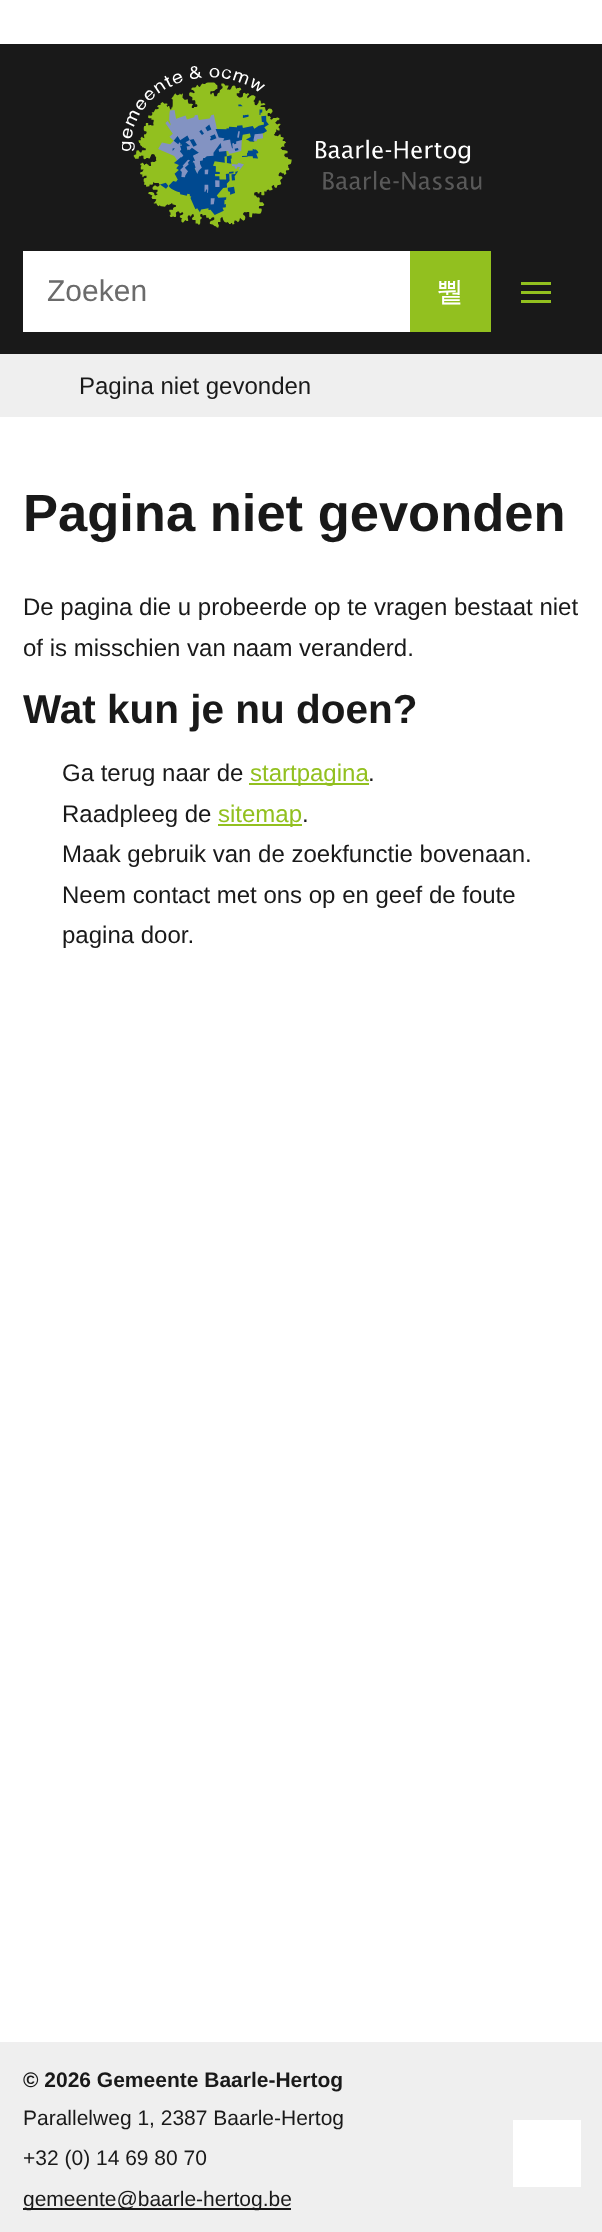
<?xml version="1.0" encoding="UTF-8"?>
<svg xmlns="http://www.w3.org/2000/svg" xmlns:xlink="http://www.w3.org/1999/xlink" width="602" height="2232">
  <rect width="100%" height="100%" fill="#ffffff" />
  <rect y="44" width="602" height="310" fill="#191919" />
  <image x="122" y="66" width="360" height="162" xlink:href="image1.png" />
  <rect x="23" y="251" width="387" height="81" fill="#ffffff" />
  <rect x="410" y="251" width="81" height="81" fill="#92c01f" />
  <rect x="521" y="291" width="30" height="3" fill="#92c01f" />
  <rect x="521" y="282" width="30" height="3" fill="#92c01f" />
  <rect x="521" y="300" width="30" height="3" fill="#92c01f" />
  <rect y="354" width="602" height="63" fill="#efefef" />
  <rect x="249" y="783" width="120" height="2" fill="#92c01f" />
  <rect x="218" y="824" width="84" height="2" fill="#92c01f" />
  <rect y="2042" width="602" height="190" fill="#efefef" />
  <rect x="23" y="2208" width="268" height="2" fill="#191919" />
  <rect x="513" y="2120" width="68" height="67" fill="#ffffff" />
  <text x="47" y="301" style="font-family: Liberation Sans; font-size: 30px; fill: #6b6b6b">Zoeken</text>
  <text x="436" y="301" style="font-family: WenQuanYi Zen Hei; font-size: 28px; font-weight: 500; fill: #ffffff">쀁</text>
  <text x="79" y="394" style="font-family: Liberation Sans; font-size: 24px; fill: #191919">Pagina niet gevonden</text>
  <text x="23" y="531" style="font-family: Liberation Sans; font-size: 52.5px; font-weight: bold; fill: #191919">Pagina niet gevonden</text>
  <text x="23" y="615" style="font-family: Liberation Sans; font-size: 24px; fill: #191919">De pagina die u probeerde op te vragen bestaat niet</text>
  <text x="23" y="656" style="font-family: Liberation Sans; font-size: 24px; fill: #191919">of is misschien van naam veranderd.</text>
  <text x="23" y="723" style="font-family: Liberation Sans; font-size: 40.5px; font-weight: bold; fill: #191919">Wat kun je nu doen?</text>
  <text x="62" y="781" style="font-family: Liberation Sans; font-size: 24px; fill: #191919">Ga terug naar de</text>
  <text x="250" y="781" style="font-family: Liberation Sans; font-size: 24px; fill: #92c01f">startpagina</text>
  <text x="368" y="781" style="font-family: Liberation Sans; font-size: 24px; fill: #191919">.</text>
  <text x="62" y="822" style="font-family: Liberation Sans; font-size: 24px; fill: #191919">Raadpleeg de</text>
  <text x="218" y="822" style="font-family: Liberation Sans; font-size: 24px; fill: #92c01f">sitemap</text>
  <text x="302" y="822" style="font-family: Liberation Sans; font-size: 24px; fill: #191919">.</text>
  <text x="62" y="862" style="font-family: Liberation Sans; font-size: 24px; fill: #191919">Maak gebruik van de zoekfunctie bovenaan.</text>
  <text x="62" y="903" style="font-family: Liberation Sans; font-size: 24px; fill: #191919">Neem contact met ons op en geef de foute</text>
  <text x="62" y="943" style="font-family: Liberation Sans; font-size: 24px; fill: #191919">pagina door.</text>
  <text x="23" y="2087" style="font-family: Liberation Sans; font-size: 21px; font-weight: bold; fill: #191919">© 2026 Gemeente Baarle-Hertog</text>
  <text x="23" y="2125" style="font-family: Liberation Sans; font-size: 21px; fill: #191919">Parallelweg 1, 2387 Baarle-Hertog</text>
  <text x="23" y="2165" style="font-family: Liberation Sans; font-size: 21px; fill: #191919">+32 (0) 14 69 80 70</text>
  <text x="23" y="2206" style="font-family: Liberation Sans; font-size: 21px; fill: #191919">gemeente@baarle-hertog.be</text>
</svg>
